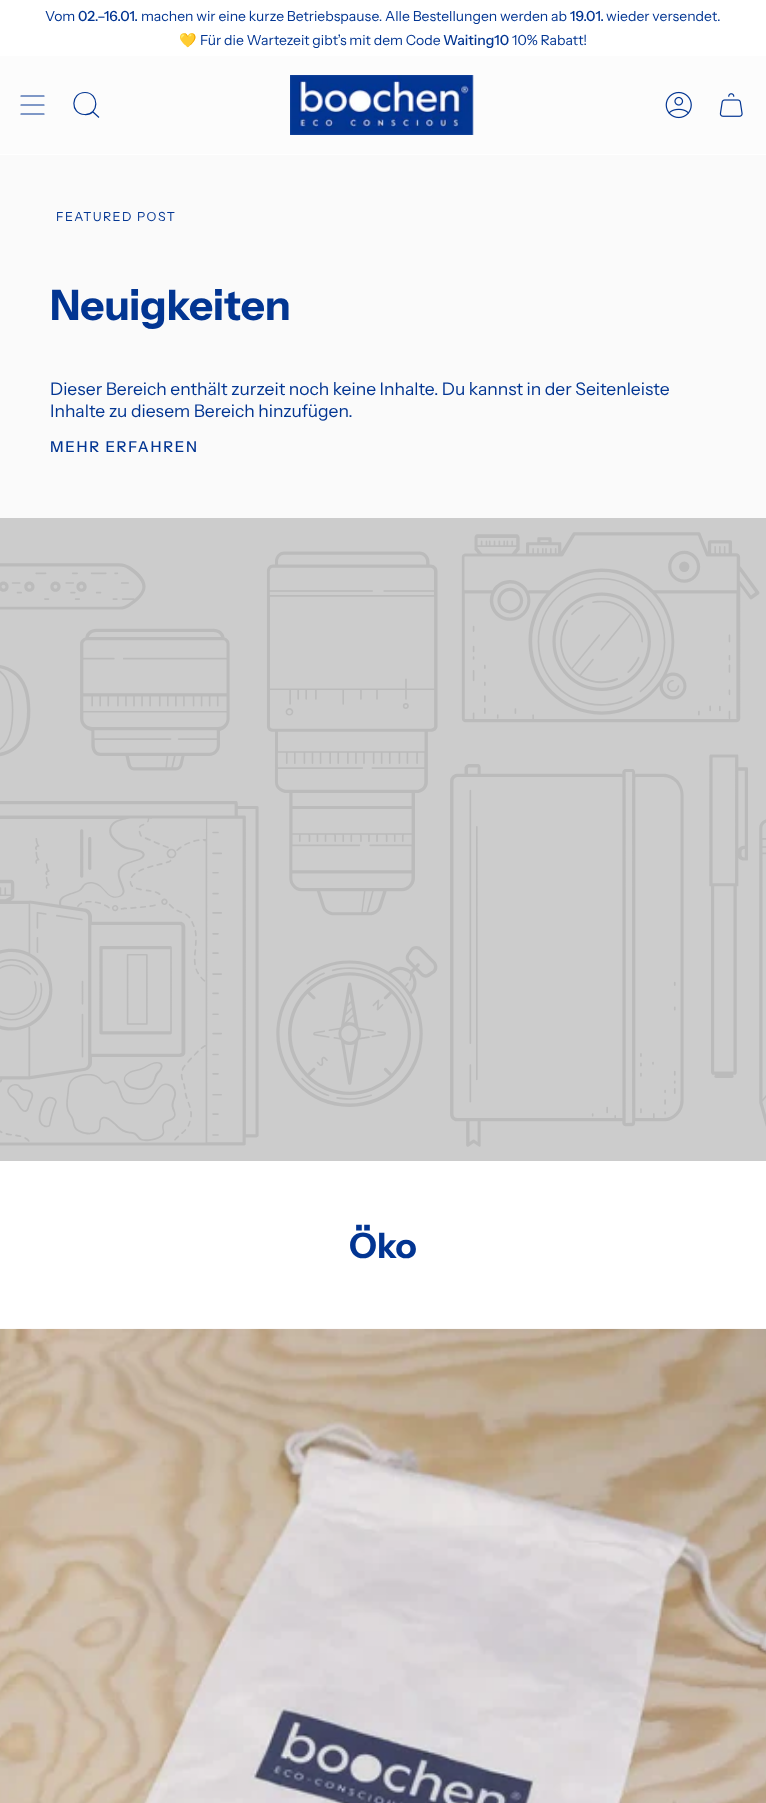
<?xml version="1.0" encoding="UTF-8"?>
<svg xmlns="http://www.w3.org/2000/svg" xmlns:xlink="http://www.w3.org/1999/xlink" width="766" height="1803">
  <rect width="100%" height="100%" fill="#ffffff" />
  <rect y="56" width="766" height="98" fill="#fcfcfc" />
  <path d="M 21 96 h 23 m -23 9 h 23 m -23 9 h 23" fill="none" stroke="#023592" stroke-width="1.2" stroke-linecap="round" stroke-linejoin="round" />
  <path d="M 85 92.5 c 14.5 0 14.5 23 -0.5 22 c -14.5 -0.5 -14 -22 0.5 -22 z m 7.5 19 l 6.5 6" fill="none" stroke="#023592" stroke-width="1.2" />
  <image x="290" y="75" width="184" height="60" xlink:href="image1.png" />
  <image x="665" y="91" width="27" height="28" xlink:href="image2.png" />
  <image x="719" y="93" width="24" height="24" xlink:href="image3.png" />
  <rect y="155" width="766" height="363" fill="#fafafa" />
  <image x="0" y="518" width="766" height="643" xlink:href="image4.png" />
  <image x="0" y="1328" width="766" height="475" xlink:href="image5.png" />
  <text x="45" y="21" style="font-family: Instrument Sans; font-size: 14px; fill: #023592">Vom</text>
  <text x="78" y="21" style="font-family: Instrument Sans; font-size: 14px; font-weight: 500; fill: #023592">02.–16.01.</text>
  <text x="141" y="21" style="font-family: Instrument Sans; font-size: 14px; fill: #023592">machen wir eine kurze Betriebspause. Alle Bestellungen werden ab</text>
  <text x="570" y="21" style="font-family: Instrument Sans; font-size: 14px; font-weight: 500; fill: #023592">19.01.</text>
  <text x="606" y="21" style="font-family: Instrument Sans; font-size: 14px; fill: #023592">wieder versendet.</text>
  <text x="179" y="45" style="font-family: Noto Color Emoji; font-size: 14px; fill: #023592">💛</text>
  <text x="200" y="45" style="font-family: Instrument Sans; font-size: 14px; fill: #023592">Für die Wartezeit gibt’s mit dem Code</text>
  <text x="443" y="45" style="font-family: Instrument Sans; font-size: 14px; font-weight: 500; fill: #023592">Waiting10</text>
  <text x="512" y="45" style="font-family: Instrument Sans; font-size: 14px; fill: #023592">10% Rabatt!</text>
  <text x="56" y="221" style="font-family: Instrument Sans; font-size: 12.5px; letter-spacing: 1.5px; fill: #023592">FEATURED POST</text>
  <text x="50" y="320" style="font-family: Instrument Sans; font-size: 42px; font-weight: bold; fill: #023592">Neuigkeiten</text>
  <text x="50" y="395" style="font-family: Instrument Sans; font-size: 17.5px; fill: #023592">Dieser Bereich enthält zurzeit noch keine Inhalte. Du kannst in der Seitenleiste</text>
  <text x="50" y="417" style="font-family: Instrument Sans; font-size: 17.5px; fill: #023592">Inhalte zu diesem Bereich hinzufügen.</text>
  <text x="50" y="452" style="font-family: Instrument Sans; font-size: 15px; font-weight: 500; letter-spacing: 1.75px; fill: #023592">MEHR ERFAHREN</text>
  <text x="349" y="1258" style="font-family: Instrument Sans; font-size: 35px; font-weight: bold; fill: #023592">Öko</text>
</svg>
